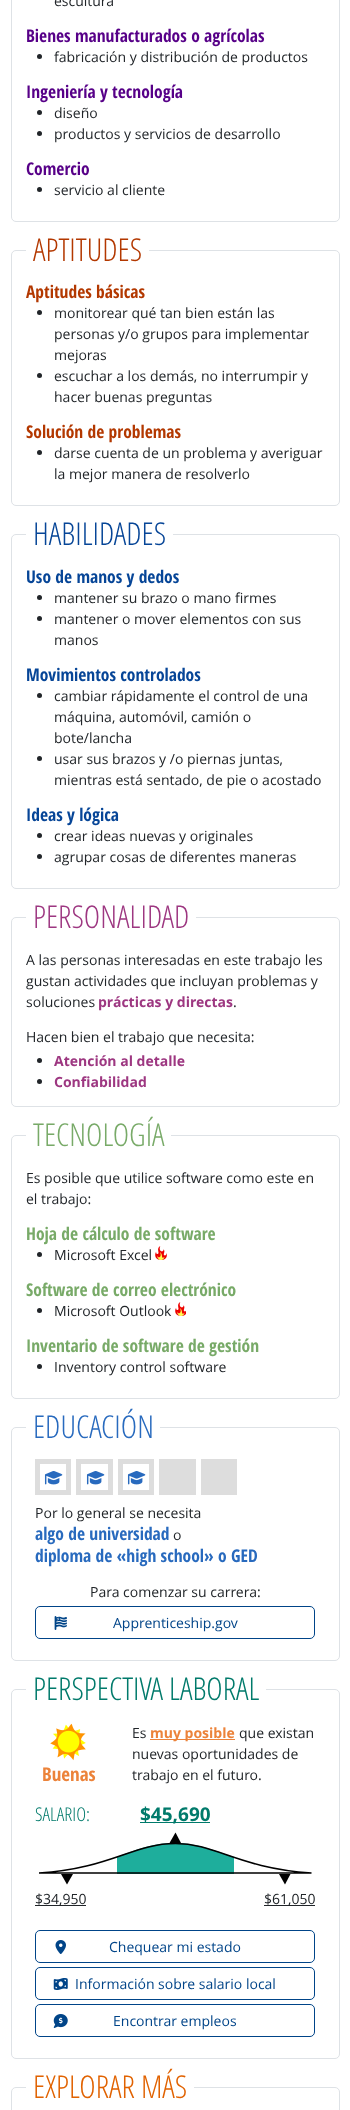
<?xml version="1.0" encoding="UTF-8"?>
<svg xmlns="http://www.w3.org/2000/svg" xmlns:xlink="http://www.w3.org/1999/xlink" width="350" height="2110">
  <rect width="100%" height="100%" fill="#ffffff" />
  <rect x="11.5" y="-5.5" width="328" height="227" rx="4.5" fill="none" stroke="#dee2e6" />
  <circle cx="39.5" cy="56.5" r="2.5" fill="#212529" />
  <circle cx="39.5" cy="112.5" r="2.5" fill="#212529" />
  <circle cx="39.5" cy="133.5" r="2.5" fill="#212529" />
  <circle cx="39.5" cy="189.5" r="2.5" fill="#212529" />
  <rect x="11.5" y="250.5" width="328" height="255" rx="4.5" fill="none" stroke="#dee2e6" />
  <rect x="26" y="250" width="123" height="1" fill="#ffffff" />
  <circle cx="39.5" cy="312.5" r="2.5" fill="#212529" />
  <circle cx="39.5" cy="375.5" r="2.5" fill="#212529" />
  <circle cx="39.5" cy="452.5" r="2.5" fill="#212529" />
  <rect x="11.5" y="534.5" width="328" height="354" rx="4.5" fill="none" stroke="#dee2e6" />
  <rect x="26" y="534" width="147" height="1" fill="#ffffff" />
  <circle cx="39.5" cy="597.5" r="2.5" fill="#212529" />
  <circle cx="39.5" cy="618.5" r="2.5" fill="#212529" />
  <circle cx="39.5" cy="695.5" r="2.5" fill="#212529" />
  <circle cx="39.5" cy="758.5" r="2.5" fill="#212529" />
  <circle cx="39.5" cy="835.5" r="2.5" fill="#212529" />
  <circle cx="39.5" cy="856.5" r="2.5" fill="#212529" />
  <rect x="11.5" y="917.5" width="328" height="189" rx="4.5" fill="none" stroke="#dee2e6" />
  <rect x="26" y="917" width="170" height="1" fill="#ffffff" />
  <circle cx="39.5" cy="1060.5" r="2.5" fill="#212529" />
  <circle cx="39.5" cy="1081.5" r="2.5" fill="#212529" />
  <rect x="11.5" y="1135.5" width="328" height="263" rx="4.5" fill="none" stroke="#dee2e6" />
  <rect x="26" y="1135" width="145" height="1" fill="#ffffff" />
  <circle cx="39.5" cy="1254.5" r="2.5" fill="#212529" />
  <image x="155" y="1246" width="12" height="14" xlink:href="image1.png" />
  <circle cx="39.5" cy="1310.5" r="2.5" fill="#212529" />
  <image x="175" y="1302" width="11" height="14" xlink:href="image2.png" />
  <circle cx="39.5" cy="1366.5" r="2.5" fill="#212529" />
  <rect x="11.5" y="1427.5" width="328" height="233" rx="4.5" fill="none" stroke="#dee2e6" />
  <rect x="26" y="1427" width="134" height="1" fill="#ffffff" />
  <rect x="37.5" y="1461.5" width="31" height="31" fill="none" stroke="#dddddd" stroke-width="5" />
  <image x="44" y="1471" width="19" height="14" xlink:href="image3.png" />
  <rect x="78.5" y="1461.5" width="32" height="31" fill="none" stroke="#dddddd" stroke-width="5" />
  <image x="86" y="1471" width="19" height="14" xlink:href="image3.png" />
  <rect x="120.5" y="1461.5" width="31" height="31" fill="none" stroke="#dddddd" stroke-width="5" />
  <image x="127" y="1471" width="19" height="14" xlink:href="image3.png" />
  <rect x="159" y="1459" width="37" height="36" fill="#dddddd" />
  <rect x="201" y="1459" width="36" height="36" fill="#dddddd" />
  <rect x="35.5" y="1606.5" width="279" height="32" rx="4.5" fill="none" stroke="#004488" />
  <image x="54" y="1616" width="13" height="14" xlink:href="image4.png" />
  <rect x="11.5" y="1689.5" width="328" height="369" rx="4.5" fill="none" stroke="#dee2e6" />
  <rect x="26" y="1689" width="240" height="1" fill="#ffffff" />
  <image x="50" y="1723" width="36" height="38" xlink:href="image5.png" />
  <rect x="150" y="1739" width="85" height="1" fill="#ec833a" />
  <rect x="140" y="1822" width="70" height="1" fill="#007a6b" />
  <path d="M 175.5 1832.5 l -6 10.5 h 11.5 z" fill="#000000" />
  <path d="M 175 1843 c -21 0 -38 6 -58 14 v 17 h 117 v -17 c -21 -7 -37 -14 -59 -14 z" fill="#1eae9c" />
  <path d="M 39 1873 h 272.5 c -73.5 -5 -95.5 -29.5 -136 -29.5 c -42.5 0 -65 25 -136.5 29.5 z" fill="none" stroke="#000000" stroke-width="1.6" />
  <path d="M 67 1884.5 l 6 -10.5 h -12 z" fill="#000000" />
  <path d="M 285 1884.5 l 5.5 -10.5 h -11.5 z" fill="#000000" />
  <rect x="35" y="1905" width="51" height="1" fill="#212529" />
  <rect x="264" y="1905" width="51" height="1" fill="#212529" />
  <rect x="35.5" y="1930.5" width="279" height="32" rx="4.5" fill="none" stroke="#004488" />
  <image x="55" y="1940" width="11" height="14" xlink:href="image6.png" />
  <rect x="35.5" y="1967.5" width="279" height="32" rx="4.5" fill="none" stroke="#004488" />
  <image x="53" y="1978" width="15" height="12" xlink:href="image7.png" />
  <rect x="35.5" y="2004.5" width="279" height="32" rx="4.5" fill="none" stroke="#004488" />
  <image x="53" y="2014" width="15" height="14" xlink:href="image8.png" />
  <rect x="11.5" y="2087.5" width="328" height="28" rx="4.5" fill="none" stroke="#dee2e6" />
  <rect x="26" y="2087" width="168" height="1" fill="#ffffff" />
  <text x="54" y="6" style="font-family: Open Sans; font-size: 14px; fill: #212529">escultura</text>
  <text x="26" y="42" style="font-family: Open Sans Condensed; font-size: 17.5px; font-weight: bold; fill: #570088">Bienes manufacturados o agrícolas</text>
  <text x="54" y="62" style="font-family: Open Sans; font-size: 14px; fill: #212529">fabricación y distribución de productos</text>
  <text x="26" y="98" style="font-family: Open Sans Condensed; font-size: 17.5px; font-weight: bold; fill: #570088">Ingeniería y tecnología</text>
  <text x="54" y="118" style="font-family: Open Sans; font-size: 14px; fill: #212529">diseño</text>
  <text x="54" y="139" style="font-family: Open Sans; font-size: 14px; fill: #212529">productos y servicios de desarrollo</text>
  <text x="26" y="175" style="font-family: Open Sans Condensed; font-size: 17.5px; font-weight: bold; fill: #570088">Comercio</text>
  <text x="54" y="195" style="font-family: Open Sans; font-size: 14px; fill: #212529">servicio al cliente</text>
  <text x="33" y="261" style="font-family: Open Sans; font-size: 31.5px; font-weight: 300; fill: #b33800">APTITUDES</text>
  <text x="26" y="298" style="font-family: Open Sans Condensed; font-size: 17.5px; font-weight: bold; fill: #b33800">Aptitudes básicas</text>
  <text x="54" y="318" style="font-family: Open Sans; font-size: 14px; fill: #212529">monitorear qué tan bien están las</text>
  <text x="54" y="339" style="font-family: Open Sans; font-size: 14px; fill: #212529">personas y/o grupos para implementar</text>
  <text x="54" y="360" style="font-family: Open Sans; font-size: 14px; fill: #212529">mejoras</text>
  <text x="54" y="381" style="font-family: Open Sans; font-size: 14px; fill: #212529">escuchar a los demás, no interrumpir y</text>
  <text x="54" y="402" style="font-family: Open Sans; font-size: 14px; fill: #212529">hacer buenas preguntas</text>
  <text x="26" y="438" style="font-family: Open Sans Condensed; font-size: 17.5px; font-weight: bold; fill: #b33800">Solución de problemas</text>
  <text x="54" y="458" style="font-family: Open Sans; font-size: 14px; fill: #212529">darse cuenta de un problema y averiguar</text>
  <text x="54" y="479" style="font-family: Open Sans; font-size: 14px; fill: #212529">la mejor manera de resolverlo</text>
  <text x="33" y="545" style="font-family: Open Sans; font-size: 31.5px; font-weight: 300; fill: #064597">HABILIDADES</text>
  <text x="26" y="583" style="font-family: Open Sans Condensed; font-size: 17.5px; font-weight: bold; fill: #064597">Uso de manos y dedos</text>
  <text x="54" y="603" style="font-family: Open Sans; font-size: 14px; fill: #212529">mantener su brazo o mano firmes</text>
  <text x="54" y="624" style="font-family: Open Sans; font-size: 14px; fill: #212529">mantener o mover elementos con sus</text>
  <text x="54" y="645" style="font-family: Open Sans; font-size: 14px; fill: #212529">manos</text>
  <text x="26" y="681" style="font-family: Open Sans Condensed; font-size: 17.5px; font-weight: bold; fill: #064597">Movimientos controlados</text>
  <text x="54" y="701" style="font-family: Open Sans; font-size: 14px; fill: #212529">cambiar rápidamente el control de una</text>
  <text x="54" y="722" style="font-family: Open Sans; font-size: 14px; fill: #212529">máquina, automóvil, camión o</text>
  <text x="54" y="743" style="font-family: Open Sans; font-size: 14px; fill: #212529">bote/lancha</text>
  <text x="54" y="764" style="font-family: Open Sans; font-size: 14px; fill: #212529">usar sus brazos y /o piernas juntas,</text>
  <text x="54" y="785" style="font-family: Open Sans; font-size: 14px; fill: #212529">mientras está sentado, de pie o acostado</text>
  <text x="26" y="821" style="font-family: Open Sans Condensed; font-size: 17.5px; font-weight: bold; fill: #064597">Ideas y lógica</text>
  <text x="54" y="841" style="font-family: Open Sans; font-size: 14px; fill: #212529">crear ideas nuevas y originales</text>
  <text x="54" y="862" style="font-family: Open Sans; font-size: 14px; fill: #212529">agrupar cosas de diferentes maneras</text>
  <text x="33" y="928" style="font-family: Open Sans; font-size: 31.5px; font-weight: 300; fill: #9d3781">PERSONALIDAD</text>
  <text x="26" y="965" style="font-family: Open Sans; font-size: 14px; fill: #212529">A las personas interesadas en este trabajo les</text>
  <text x="26" y="986" style="font-family: Open Sans; font-size: 14px; fill: #212529">gustan actividades que incluyan problemas y</text>
  <text x="26" y="1007" style="font-family: Open Sans; font-size: 14px; fill: #212529">soluciones</text>
  <text x="98" y="1007" style="font-family: Open Sans; font-size: 14px; font-weight: bold; fill: #9d3781">prácticas y directas</text>
  <text x="233" y="1007" style="font-family: Open Sans; font-size: 14px; fill: #212529">.</text>
  <text x="26" y="1042" style="font-family: Open Sans; font-size: 14px; fill: #212529">Hacen bien el trabajo que necesita:</text>
  <text x="54" y="1066" style="font-family: Open Sans; font-size: 14px; font-weight: bold; fill: #9d3781">Atención al detalle</text>
  <text x="54" y="1087" style="font-family: Open Sans; font-size: 14px; font-weight: bold; fill: #9d3781">Confiabilidad</text>
  <text x="33" y="1146" style="font-family: Open Sans; font-size: 31.5px; font-weight: 300; fill: #78aa68">TECNOLOGÍA</text>
  <text x="26" y="1183" style="font-family: Open Sans; font-size: 14px; fill: #212529">Es posible que utilice software como este en</text>
  <text x="26" y="1204" style="font-family: Open Sans; font-size: 14px; fill: #212529">el trabajo:</text>
  <text x="26" y="1240" style="font-family: Open Sans Condensed; font-size: 17.5px; font-weight: bold; fill: #78aa68">Hoja de cálculo de software</text>
  <text x="54" y="1260" style="font-family: Open Sans; font-size: 14px; fill: #212529">Microsoft Excel</text>
  <text x="26" y="1296" style="font-family: Open Sans Condensed; font-size: 17.5px; font-weight: bold; fill: #78aa68">Software de correo electrónico</text>
  <text x="54" y="1316" style="font-family: Open Sans; font-size: 14px; fill: #212529">Microsoft Outlook</text>
  <text x="26" y="1352" style="font-family: Open Sans Condensed; font-size: 17.5px; font-weight: bold; fill: #78aa68">Inventario de software de gestión</text>
  <text x="54" y="1372" style="font-family: Open Sans; font-size: 14px; fill: #212529">Inventory control software</text>
  <text x="33" y="1438" style="font-family: Open Sans; font-size: 31.5px; font-weight: 300; fill: #286abe">EDUCACIÓN</text>
  <text x="35" y="1518" style="font-family: Open Sans; font-size: 14px; fill: #212529">Por lo general se necesita</text>
  <text x="35" y="1540" style="font-family: Open Sans Condensed; font-size: 17.5px; font-weight: bold; fill: #286abe">algo de universidad</text>
  <text x="173" y="1540" style="font-family: Open Sans; font-size: 14px; fill: #212529">o</text>
  <text x="35" y="1562" style="font-family: Open Sans Condensed; font-size: 17.5px; font-weight: bold; fill: #286abe">diploma de «high school» o GED</text>
  <text x="90" y="1597" style="font-family: Open Sans; font-size: 14px; fill: #212529">Para comenzar su carrera:</text>
  <text x="113" y="1628" style="font-family: Open Sans; font-size: 14px; fill: #004488">Apprenticeship.gov</text>
  <text x="33" y="1700" style="font-family: Open Sans; font-size: 31.5px; font-weight: 300; fill: #007a6b">PERSPECTIVA LABORAL</text>
  <text x="42" y="1781" style="font-family: Open Sans Condensed; font-size: 19px; font-weight: bold; fill: #ec833a">Buenas</text>
  <text x="132" y="1738" style="font-family: Open Sans; font-size: 14px; fill: #212529">Es</text>
  <text x="150" y="1738" style="font-family: Open Sans; font-size: 14px; font-weight: bold; fill: #ec833a">muy posible</text>
  <text x="239" y="1738" style="font-family: Open Sans; font-size: 14px; fill: #212529">que existan</text>
  <text x="132" y="1759" style="font-family: Open Sans; font-size: 14px; fill: #212529">nuevas oportunidades de</text>
  <text x="132" y="1780" style="font-family: Open Sans; font-size: 14px; fill: #212529">trabajo en el futuro.</text>
  <text x="35" y="1821" style="font-family: Open Sans; font-size: 19px; font-weight: 300; fill: #007a6b">SALARIO:</text>
  <text x="140" y="1821" style="font-family: Open Sans; font-size: 19px; font-weight: bold; fill: #007a6b">$45,690</text>
  <text x="35" y="1904" style="font-family: Open Sans; font-size: 14px; fill: #212529">$34,950</text>
  <text x="264" y="1904" style="font-family: Open Sans; font-size: 14px; fill: #212529">$61,050</text>
  <text x="109" y="1952" style="font-family: Open Sans; font-size: 14px; fill: #004488">Chequear mi estado</text>
  <text x="75" y="1989" style="font-family: Open Sans; font-size: 14px; fill: #004488">Información sobre salario local</text>
  <text x="113" y="2026" style="font-family: Open Sans; font-size: 14px; fill: #004488">Encontrar empleos</text>
  <text x="33" y="2098" style="font-family: Open Sans; font-size: 31.5px; font-weight: 300; fill: #e16200">EXPLORAR MÁS</text>
</svg>
